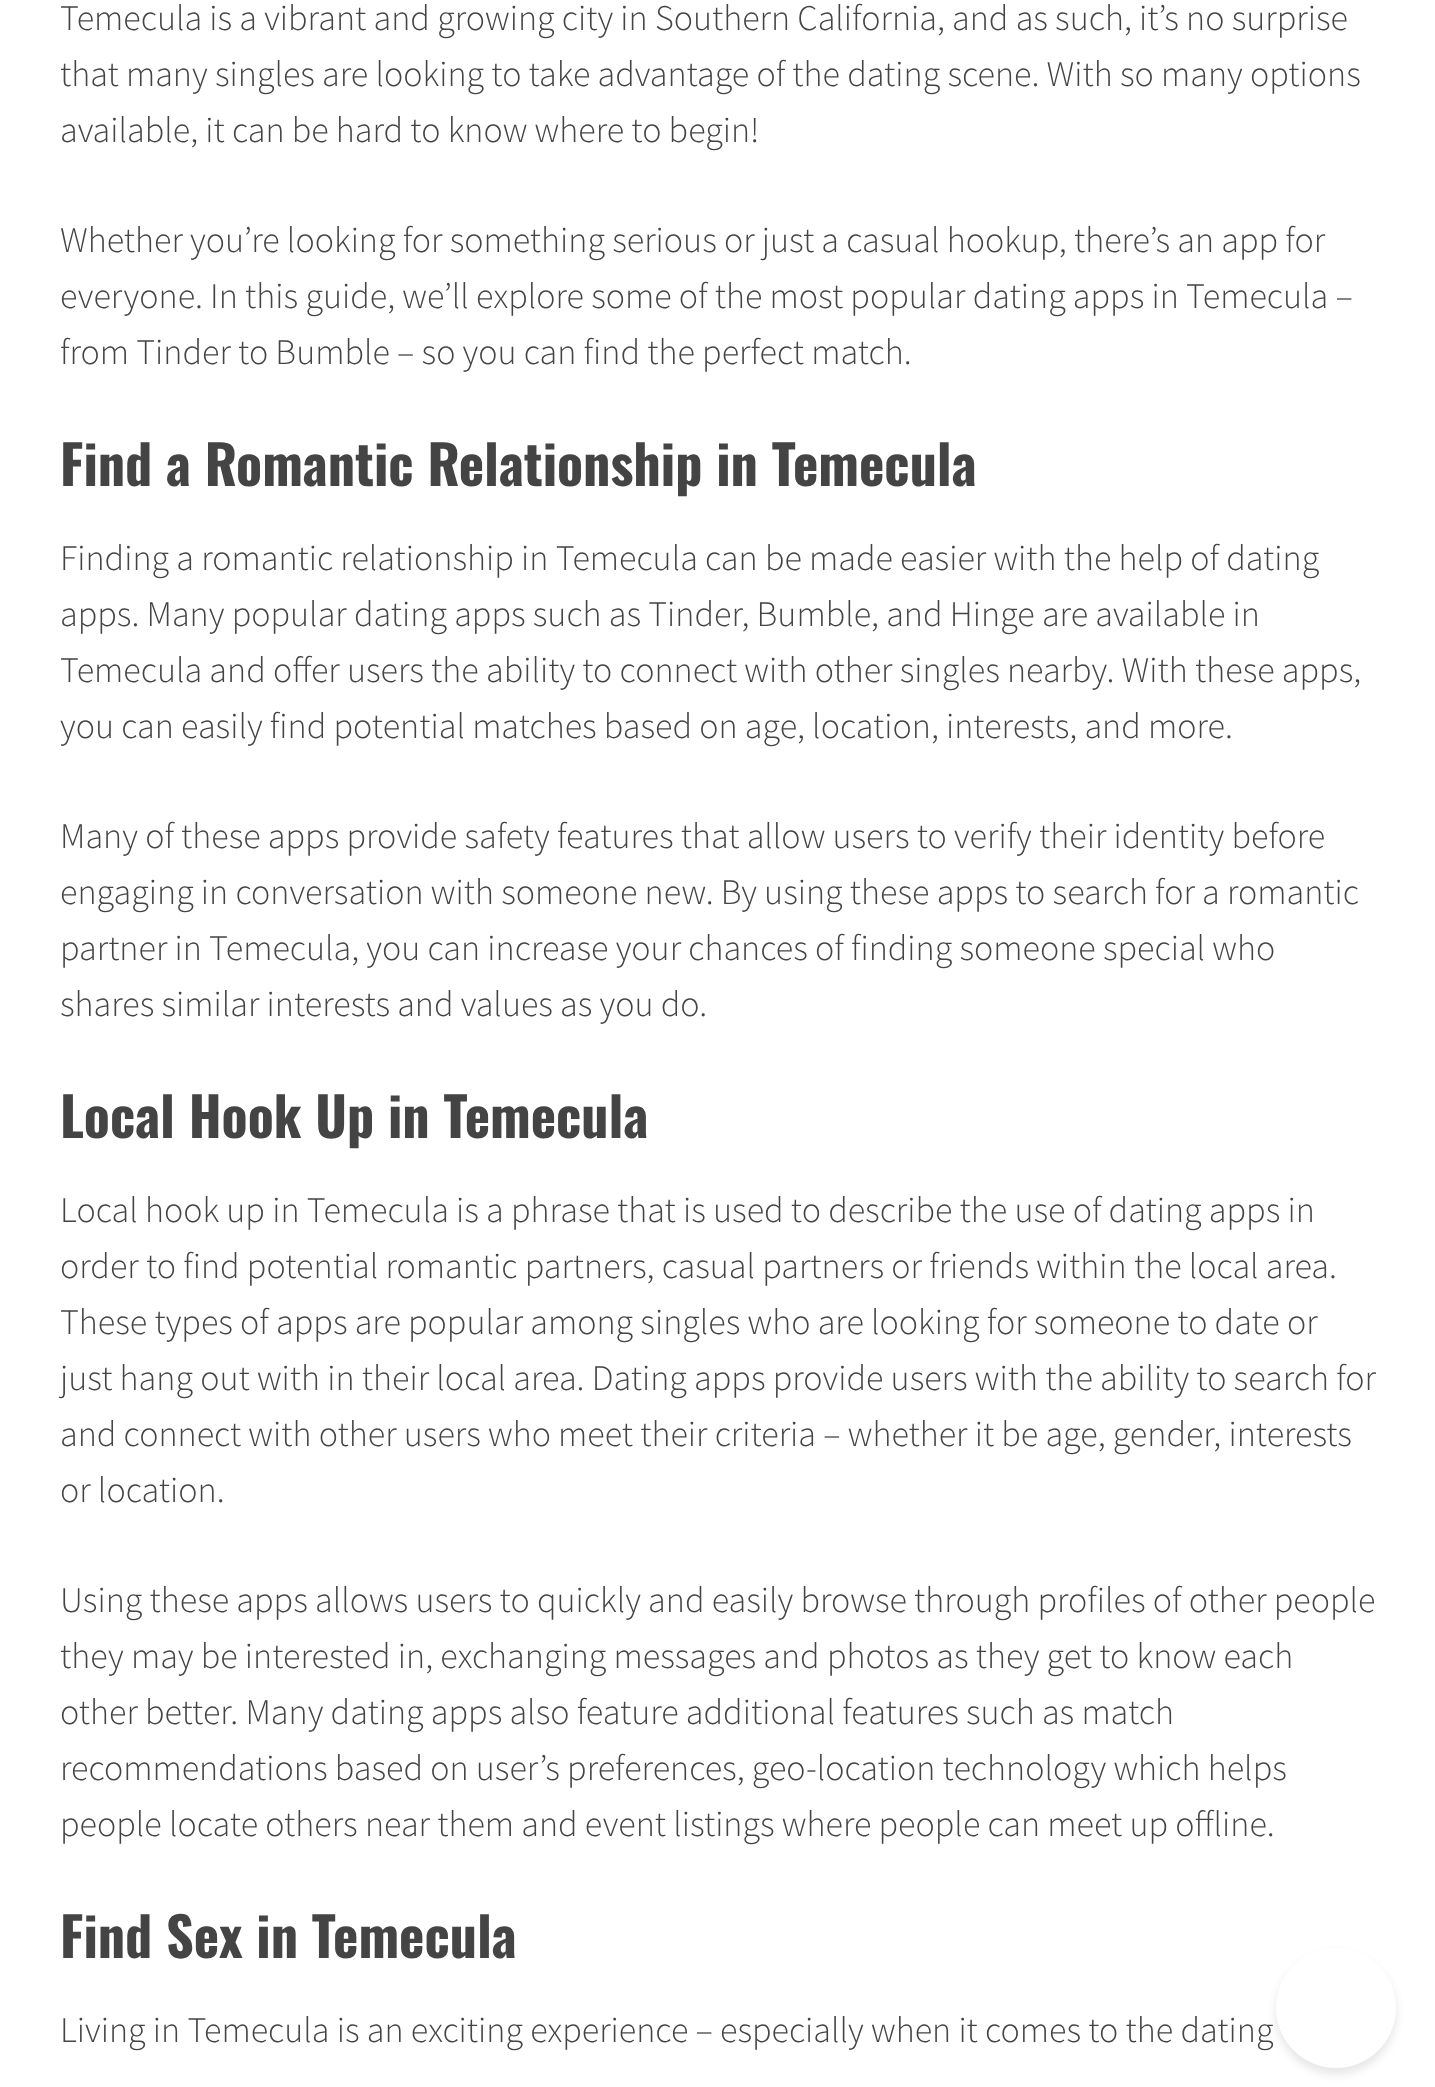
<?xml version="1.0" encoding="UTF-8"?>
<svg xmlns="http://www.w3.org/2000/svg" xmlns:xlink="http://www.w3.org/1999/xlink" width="1435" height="2087">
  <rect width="100%" height="100%" fill="#ffffff" />
  <rect x="1276" y="1954" width="120" height="120" rx="60" fill="#000000" fill-opacity="0.1" filter="blur(5px)" />
  <circle cx="1336" cy="2008" r="60" fill="#ffffff" />
  <text x="60" y="30" style="font-family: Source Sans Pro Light; font-size: 36px; font-weight: 300; fill: #444444">Temecula is a vibrant and growing city in Southern California, and as such, it’s no surprise</text>
  <text x="60" y="86" style="font-family: Source Sans Pro Light; font-size: 36px; font-weight: 300; fill: #444444">that many singles are looking to take advantage of the dating scene. With so many options</text>
  <text x="60" y="142" style="font-family: Source Sans Pro Light; font-size: 36px; font-weight: 300; fill: #444444">available, it can be hard to know where to begin!</text>
  <text x="60" y="252" style="font-family: Source Sans Pro Light; font-size: 36px; font-weight: 300; fill: #444444">Whether you’re looking for something serious or just a casual hookup, there’s an app for</text>
  <text x="60" y="308" style="font-family: Source Sans Pro Light; font-size: 36px; font-weight: 300; fill: #444444">everyone. In this guide, we’ll explore some of the most popular dating apps in Temecula –</text>
  <text x="60" y="364" style="font-family: Source Sans Pro Light; font-size: 36px; font-weight: 300; fill: #444444">from Tinder to Bumble – so you can find the perfect match.</text>
  <text x="60" y="486" style="font-family: Oswald; font-size: 54px; font-weight: bold; fill: #444444">Find a Romantic Relationship in Temecula</text>
  <text x="60" y="570" style="font-family: Source Sans Pro Light; font-size: 36px; font-weight: 300; fill: #444444">Finding a romantic relationship in Temecula can be made easier with the help of dating</text>
  <text x="60" y="626" style="font-family: Source Sans Pro Light; font-size: 36px; font-weight: 300; fill: #444444">apps. Many popular dating apps such as Tinder, Bumble, and Hinge are available in</text>
  <text x="60" y="682" style="font-family: Source Sans Pro Light; font-size: 36px; font-weight: 300; fill: #444444">Temecula and offer users the ability to connect with other singles nearby. With these apps,</text>
  <text x="60" y="738" style="font-family: Source Sans Pro Light; font-size: 36px; font-weight: 300; fill: #444444">you can easily find potential matches based on age, location, interests, and more.</text>
  <text x="60" y="848" style="font-family: Source Sans Pro Light; font-size: 36px; font-weight: 300; fill: #444444">Many of these apps provide safety features that allow users to verify their identity before</text>
  <text x="60" y="904" style="font-family: Source Sans Pro Light; font-size: 36px; font-weight: 300; fill: #444444">engaging in conversation with someone new. By using these apps to search for a romantic</text>
  <text x="60" y="960" style="font-family: Source Sans Pro Light; font-size: 36px; font-weight: 300; fill: #444444">partner in Temecula, you can increase your chances of finding someone special who</text>
  <text x="60" y="1016" style="font-family: Source Sans Pro Light; font-size: 36px; font-weight: 300; fill: #444444">shares similar interests and values as you do.</text>
  <text x="60" y="1138" style="font-family: Oswald; font-size: 54px; font-weight: bold; fill: #444444">Local Hook Up in Temecula</text>
  <text x="60" y="1222" style="font-family: Source Sans Pro Light; font-size: 36px; font-weight: 300; fill: #444444">Local hook up in Temecula is a phrase that is used to describe the use of dating apps in</text>
  <text x="60" y="1278" style="font-family: Source Sans Pro Light; font-size: 36px; font-weight: 300; fill: #444444">order to find potential romantic partners, casual partners or friends within the local area.</text>
  <text x="60" y="1334" style="font-family: Source Sans Pro Light; font-size: 36px; font-weight: 300; fill: #444444">These types of apps are popular among singles who are looking for someone to date or</text>
  <text x="60" y="1390" style="font-family: Source Sans Pro Light; font-size: 36px; font-weight: 300; fill: #444444">just hang out with in their local area. Dating apps provide users with the ability to search for</text>
  <text x="60" y="1446" style="font-family: Source Sans Pro Light; font-size: 36px; font-weight: 300; fill: #444444">and connect with other users who meet their criteria – whether it be age, gender, interests</text>
  <text x="60" y="1502" style="font-family: Source Sans Pro Light; font-size: 36px; font-weight: 300; fill: #444444">or location.</text>
  <text x="60" y="1612" style="font-family: Source Sans Pro Light; font-size: 36px; font-weight: 300; fill: #444444">Using these apps allows users to quickly and easily browse through profiles of other people</text>
  <text x="60" y="1668" style="font-family: Source Sans Pro Light; font-size: 36px; font-weight: 300; fill: #444444">they may be interested in, exchanging messages and photos as they get to know each</text>
  <text x="60" y="1724" style="font-family: Source Sans Pro Light; font-size: 36px; font-weight: 300; fill: #444444">other better. Many dating apps also feature additional features such as match</text>
  <text x="60" y="1780" style="font-family: Source Sans Pro Light; font-size: 36px; font-weight: 300; fill: #444444">recommendations based on user’s preferences, geo-location technology which helps</text>
  <text x="60" y="1836" style="font-family: Source Sans Pro Light; font-size: 36px; font-weight: 300; fill: #444444">people locate others near them and event listings where people can meet up offline.</text>
  <text x="60" y="1958" style="font-family: Oswald; font-size: 54px; font-weight: bold; fill: #444444">Find Sex in Temecula</text>
  <text x="60" y="2042" style="font-family: Source Sans Pro Light; font-size: 36px; font-weight: 300; fill: #444444">Living in Temecula is an exciting experience – especially when it comes to the dating</text>
</svg>
